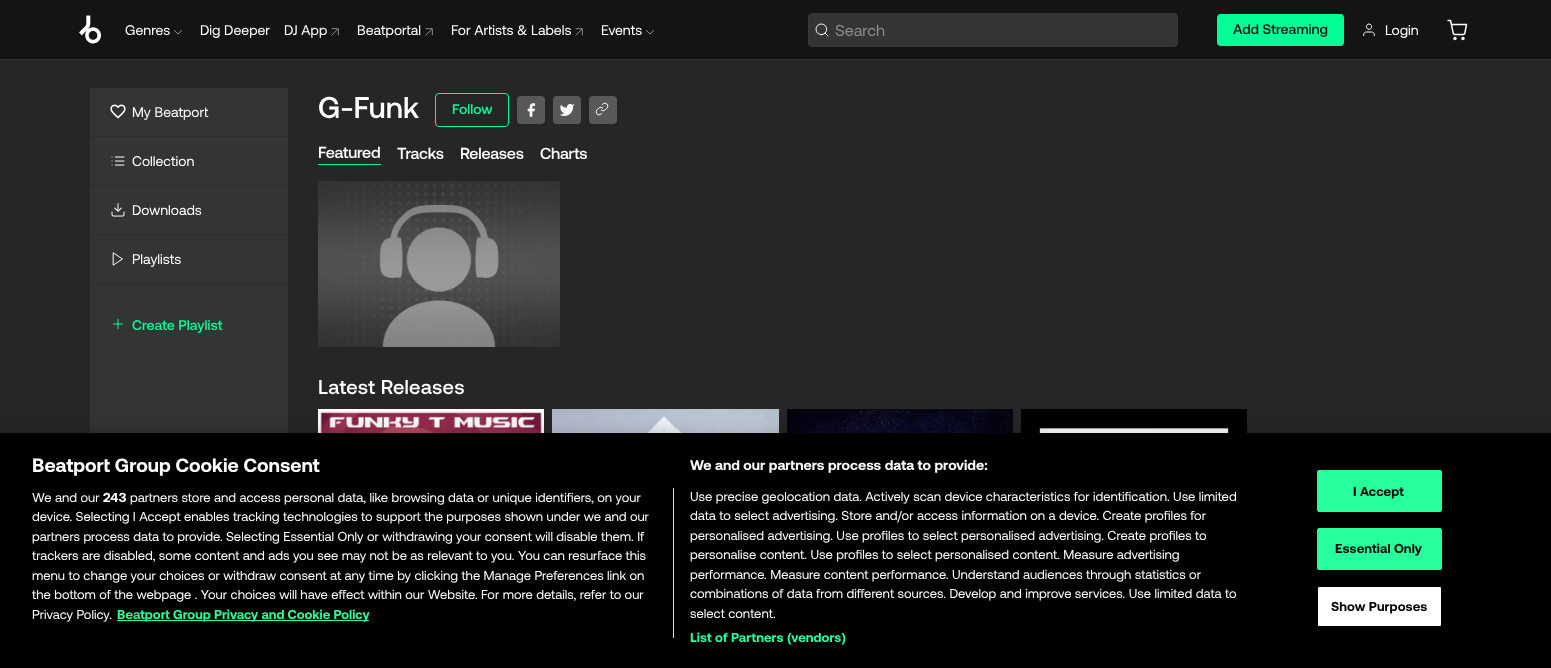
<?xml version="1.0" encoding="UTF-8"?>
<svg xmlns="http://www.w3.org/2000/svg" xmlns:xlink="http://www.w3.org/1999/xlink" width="1551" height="668">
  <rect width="100%" height="100%" fill="#262626" />
  <rect width="1551" height="59" fill="#141414" />
  <rect y="59" width="1551" height="1" fill="#333333" />
  <image x="79" y="15" width="22" height="29" xlink:href="image1.png" />
  <image x="174" y="30" width="8" height="4" xlink:href="image2.png" />
  <image x="331" y="28" width="8" height="8" xlink:href="image3.png" />
  <image x="425" y="28" width="8" height="8" xlink:href="image3.png" />
  <image x="575" y="28" width="8" height="8" xlink:href="image3.png" />
  <image x="646" y="30" width="8" height="4" xlink:href="image2.png" />
  <rect x="808.5" y="13.5" width="369" height="33" rx="3.5" fill="#343434" stroke="#383838" />
  <image x="815" y="23" width="14" height="14" xlink:href="image4.png" />
  <rect x="1176" y="14" width="1" height="32" fill="#343434" />
  <rect x="1217" y="14" width="127" height="32" rx="4" fill="#01ff95" />
  <image x="1363" y="23" width="12" height="13" xlink:href="image5.png" />
  <image x="1447" y="19" width="21" height="22" xlink:href="image6.png" />
  <rect x="90" y="88" width="198" height="345" fill="#343434" />
  <rect x="90" y="136" width="198" height="1" fill="#2d2d2d" />
  <image x="110" y="104" width="16" height="15" xlink:href="image7.png" />
  <rect x="90" y="185" width="198" height="1" fill="#2d2d2d" />
  <image x="111" y="156" width="14" height="10" xlink:href="image8.png" />
  <rect x="90" y="234" width="198" height="1" fill="#2d2d2d" />
  <image x="111" y="203" width="14" height="14" xlink:href="image9.png" />
  <rect x="90" y="283" width="198" height="1" fill="#2d2d2d" />
  <path d="M 113.5 253 l 9 6 l -9 6 z" fill="none" stroke="#ffffff" stroke-linecap="round" stroke-linejoin="round" />
  <image x="112" y="318" width="12" height="12" xlink:href="image10.png" />
  <rect x="435.5" y="93.5" width="73" height="33" rx="3.5" fill="none" stroke="#01ff95" />
  <rect x="517" y="96" width="28" height="28" rx="4" fill="#585858" />
  <image x="527" y="103" width="8" height="14" xlink:href="image11.png" />
  <rect x="553" y="96" width="28" height="28" rx="4" fill="#585858" />
  <image x="560" y="104" width="15" height="12" xlink:href="image12.png" />
  <rect x="589" y="96" width="28" height="28" rx="4" fill="#585858" />
  <image x="595" y="102" width="14" height="14" xlink:href="image13.png" />
  <rect x="318" y="164" width="63" height="1" fill="#01ff95" />
  <image x="318" y="181" width="242" height="166" xlink:href="image14.png" />
  <image x="318" y="409" width="226" height="24" xlink:href="image15.png" />
  <image x="552" y="409" width="227" height="24" xlink:href="image16.png" />
  <image x="787" y="409" width="226" height="24" xlink:href="image17.png" />
  <image x="1021" y="409" width="226" height="24" xlink:href="image18.png" />
  <rect y="433" width="1551" height="235" fill="#000000" fill-opacity="0.2" filter="blur(9px)" />
  <rect y="433" width="1551" height="235" fill="#000000" />
  <rect x="673" y="488" width="1" height="150" fill="#d8d8d8" />
  <rect x="117" y="620" width="252" height="1" fill="#27ff9c" />
  <rect x="1317.5" y="470.5" width="124" height="41" rx="1.5" fill="#27ff9c" stroke="#27ff9c" />
  <rect x="1317.5" y="528.5" width="124" height="41" rx="1.5" fill="#27ff9c" stroke="#27ff9c" />
  <rect x="1317.5" y="586.5" width="124" height="40" rx="1.5" fill="#ffffff" stroke="#000000" />
  <text x="125" y="35" style="font-family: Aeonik; font-size: 14px; fill: #ffffff">Genres</text>
  <text x="200" y="35" style="font-family: Aeonik; font-size: 14px; fill: #ffffff">Dig Deeper</text>
  <text x="284" y="35" style="font-family: Aeonik; font-size: 14px; fill: #ffffff">DJ App</text>
  <text x="357" y="35" style="font-family: Aeonik; font-size: 14px; fill: #ffffff">Beatportal</text>
  <text x="451" y="35" style="font-family: Aeonik; font-size: 14px; fill: #ffffff">For Artists &amp; Labels</text>
  <text x="601" y="35" style="font-family: Aeonik; font-size: 14px; fill: #ffffff">Events</text>
  <text x="835" y="36" style="font-family: Aeonik; font-size: 16px; fill: #8c8c8c">Search</text>
  <text x="1233" y="34" style="font-family: Aeonik; font-size: 14px; font-weight: 500; fill: #141414">Add Streaming</text>
  <text x="1385" y="35" style="font-family: Aeonik; font-size: 14px; fill: #ffffff">Login</text>
  <text x="132" y="117" style="font-family: Aeonik; font-size: 14px; fill: #ffffff">My Beatport</text>
  <text x="132" y="166" style="font-family: Aeonik; font-size: 14px; fill: #ffffff">Collection</text>
  <text x="132" y="215" style="font-family: Aeonik; font-size: 14px; fill: #ffffff">Downloads</text>
  <text x="132" y="264" style="font-family: Aeonik; font-size: 14px; fill: #ffffff">Playlists</text>
  <text x="132" y="330" style="font-family: Aeonik; font-size: 14px; font-weight: 500; fill: #01ff95">Create Playlist</text>
  <text x="318" y="118" style="font-family: Aeonik; font-size: 30px; font-weight: 500; fill: #ffffff">G-Funk</text>
  <text x="452" y="114" style="font-family: Aeonik; font-size: 14px; font-weight: 500; fill: #01ff95">Follow</text>
  <text x="318" y="158" style="font-family: Aeonik; font-size: 16px; font-weight: 500; letter-spacing: -0.25px; fill: #ffffff">Featured</text>
  <text x="397" y="159" style="font-family: Aeonik; font-size: 16px; font-weight: 500; letter-spacing: -0.25px; fill: #ffffff">Tracks</text>
  <text x="460" y="159" style="font-family: Aeonik; font-size: 16px; font-weight: 500; letter-spacing: -0.25px; fill: #ffffff">Releases</text>
  <text x="540" y="159" style="font-family: Aeonik; font-size: 16px; font-weight: 500; letter-spacing: -0.25px; fill: #ffffff">Charts</text>
  <text x="318" y="394" style="font-family: Aeonik; font-size: 20px; font-weight: 500; letter-spacing: 0.25px; fill: #ffffff">Latest Releases</text>
  <text x="32" y="472" style="font-family: Aeonik; font-size: 19.25px; font-weight: bold; fill: #ffffff">Beatport Group Cookie Consent</text>
  <text x="690" y="470" style="font-family: Aeonik; font-size: 14.1px; font-weight: bold; fill: #ffffff">We and our partners process data to provide:</text>
  <text x="690" y="501" style="font-family: Aeonik; font-size: 13px; fill: #ffffff">Use precise geolocation data. Actively scan device characteristics for identification. Use limited</text>
  <text x="690" y="520" style="font-family: Aeonik; font-size: 13px; fill: #ffffff">data to select advertising. Store and/or access information on a device. Create profiles for</text>
  <text x="690" y="540" style="font-family: Aeonik; font-size: 13px; fill: #ffffff">personalised advertising. Use profiles to select personalised advertising. Create profiles to</text>
  <text x="690" y="559" style="font-family: Aeonik; font-size: 13px; fill: #ffffff">personalise content. Use profiles to select personalised content. Measure advertising</text>
  <text x="690" y="579" style="font-family: Aeonik; font-size: 13px; fill: #ffffff">performance. Measure content performance. Understand audiences through statistics or</text>
  <text x="690" y="598" style="font-family: Aeonik; font-size: 13px; fill: #ffffff">combinations of data from different sources. Develop and improve services. Use limited data to</text>
  <text x="690" y="618" style="font-family: Aeonik; font-size: 13px; fill: #ffffff">select content.</text>
  <text x="690" y="642" style="font-family: Aeonik; font-size: 13px; font-weight: bold; letter-spacing: 0.1px; fill: #27ff9c">List of Partners (vendors)</text>
  <text x="32" y="502" style="font-family: Aeonik; font-size: 13px; fill: #ffffff">We and our</text>
  <text x="103" y="502" style="font-family: Aeonik; font-size: 13px; font-weight: bold; fill: #ffffff">243</text>
  <text x="130" y="502" style="font-family: Aeonik; font-size: 13px; fill: #ffffff">partners store and access personal data, like browsing data or unique identifiers, on your</text>
  <text x="32" y="521" style="font-family: Aeonik; font-size: 13px; fill: #ffffff">device. Selecting I Accept enables tracking technologies to support the purposes shown under we and our</text>
  <text x="32" y="541" style="font-family: Aeonik; font-size: 13px; fill: #ffffff">partners process data to provide. Selecting Essential Only or withdrawing your consent will disable them. If</text>
  <text x="32" y="560" style="font-family: Aeonik; font-size: 13px; fill: #ffffff">trackers are disabled, some content and ads you see may not be as relevant to you. You can resurface this</text>
  <text x="32" y="580" style="font-family: Aeonik; font-size: 13px; fill: #ffffff">menu to change your choices or withdraw consent at any time by clicking the Manage Preferences link on</text>
  <text x="32" y="599" style="font-family: Aeonik; font-size: 13px; fill: #ffffff">the bottom of the webpage . Your choices will have effect within our Website. For more details, refer to our</text>
  <text x="32" y="619" style="font-family: Aeonik; font-size: 13px; fill: #ffffff">Privacy Policy.</text>
  <text x="117" y="619" style="font-family: Aeonik; font-size: 13px; font-weight: bold; fill: #27ff9c">Beatport Group Privacy and Cookie Policy</text>
  <text x="1353" y="496" style="font-family: Aeonik; font-size: 13px; font-weight: bold; letter-spacing: 0.1px; fill: #000000">I Accept</text>
  <text x="1335" y="553" style="font-family: Aeonik; font-size: 13px; font-weight: bold; letter-spacing: 0.1px; fill: #000000">Essential Only</text>
  <text x="1331" y="611" style="font-family: Aeonik; font-size: 13px; font-weight: bold; letter-spacing: 0.1px; fill: #000000">Show Purposes</text>
</svg>
